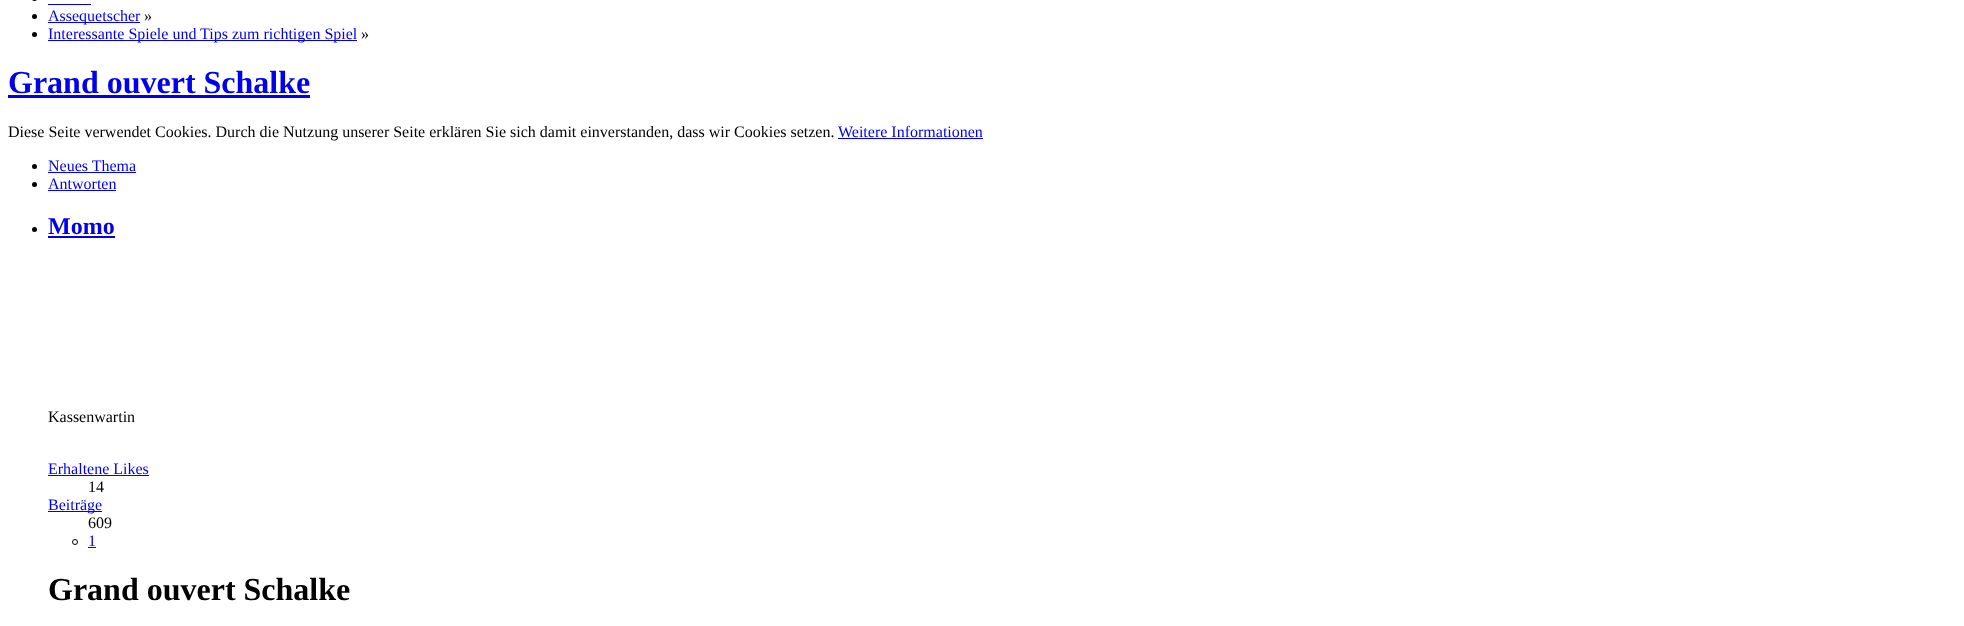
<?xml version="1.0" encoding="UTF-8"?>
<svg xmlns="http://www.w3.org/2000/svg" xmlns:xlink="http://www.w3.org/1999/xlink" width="1964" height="626">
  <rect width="100%" height="100%" fill="#ffffff" />
  <rect x="32" y="-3" width="5" height="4" rx="2.5" fill="#000000" />
  <rect x="48" y="4" width="43" height="1" fill="#0000ee" />
  <circle cx="34.5" cy="16.5" r="2.5" fill="#000000" />
  <rect x="48" y="22" width="92" height="1" fill="#0000ee" />
  <circle cx="34.5" cy="34.5" r="2.5" fill="#000000" />
  <rect x="48" y="40" width="309" height="1" fill="#0000ee" />
  <rect x="8" y="95" width="302" height="3" fill="#0000ee" />
  <rect x="838" y="138" width="145" height="1" fill="#0000ee" />
  <circle cx="34.5" cy="166.5" r="2.5" fill="#000000" />
  <rect x="48" y="172" width="88" height="1" fill="#0000ee" />
  <circle cx="34.5" cy="184.5" r="2.5" fill="#000000" />
  <rect x="48" y="190" width="68" height="1" fill="#0000ee" />
  <circle cx="34.5" cy="229.5" r="2.5" fill="#000000" />
  <rect x="48" y="236" width="67" height="2" fill="#0000ee" />
  <rect x="48" y="475" width="101" height="1" fill="#0000ee" />
  <rect x="48" y="511" width="54" height="1" fill="#0000ee" />
  <circle cx="75" cy="542" r="2.5" fill="none" stroke="#000000" />
  <rect x="88" y="547" width="8" height="1" fill="#0000ee" />
  <text x="48" y="21" style="font-family: Liberation Serif; font-size: 16px; fill: #0000ee">Assequetscher</text>
  <text x="144" y="21" style="font-family: Liberation Serif; font-size: 16px; fill: #000000">»</text>
  <text x="48" y="39" style="font-family: Liberation Serif; font-size: 16px; fill: #0000ee">Interessante Spiele und Tips zum richtigen Spiel</text>
  <text x="361" y="39" style="font-family: Liberation Serif; font-size: 16px; fill: #000000">»</text>
  <text x="8" y="93" style="font-family: Liberation Serif; font-size: 32px; font-weight: bold; fill: #0000ee">Grand ouvert Schalke</text>
  <text x="8" y="137" style="font-family: Liberation Serif; font-size: 16px; fill: #000000">Diese Seite verwendet Cookies. Durch die Nutzung unserer Seite erklären Sie sich damit einverstanden, dass wir Cookies setzen.</text>
  <text x="838" y="137" style="font-family: Liberation Serif; font-size: 16px; fill: #0000ee">Weitere Informationen</text>
  <text x="48" y="171" style="font-family: Liberation Serif; font-size: 16px; fill: #0000ee">Neues Thema</text>
  <text x="48" y="189" style="font-family: Liberation Serif; font-size: 16px; fill: #0000ee">Antworten</text>
  <text x="48" y="234" style="font-family: Liberation Serif; font-size: 24px; font-weight: bold; fill: #0000ee">Momo</text>
  <text x="48" y="422" style="font-family: Liberation Serif; font-size: 16px; fill: #000000">Kassenwartin</text>
  <text x="48" y="474" style="font-family: Liberation Serif; font-size: 16px; fill: #0000ee">Erhaltene Likes</text>
  <text x="88" y="492" style="font-family: Liberation Serif; font-size: 16px; fill: #000000">14</text>
  <text x="48" y="510" style="font-family: Liberation Serif; font-size: 16px; fill: #0000ee">Beiträge</text>
  <text x="88" y="528" style="font-family: Liberation Serif; font-size: 16px; fill: #000000">609</text>
  <text x="88" y="546" style="font-family: Liberation Serif; font-size: 16px; fill: #0000ee">1</text>
  <text x="48" y="600" style="font-family: Liberation Serif; font-size: 32px; font-weight: bold; fill: #000000">Grand ouvert Schalke</text>
</svg>
